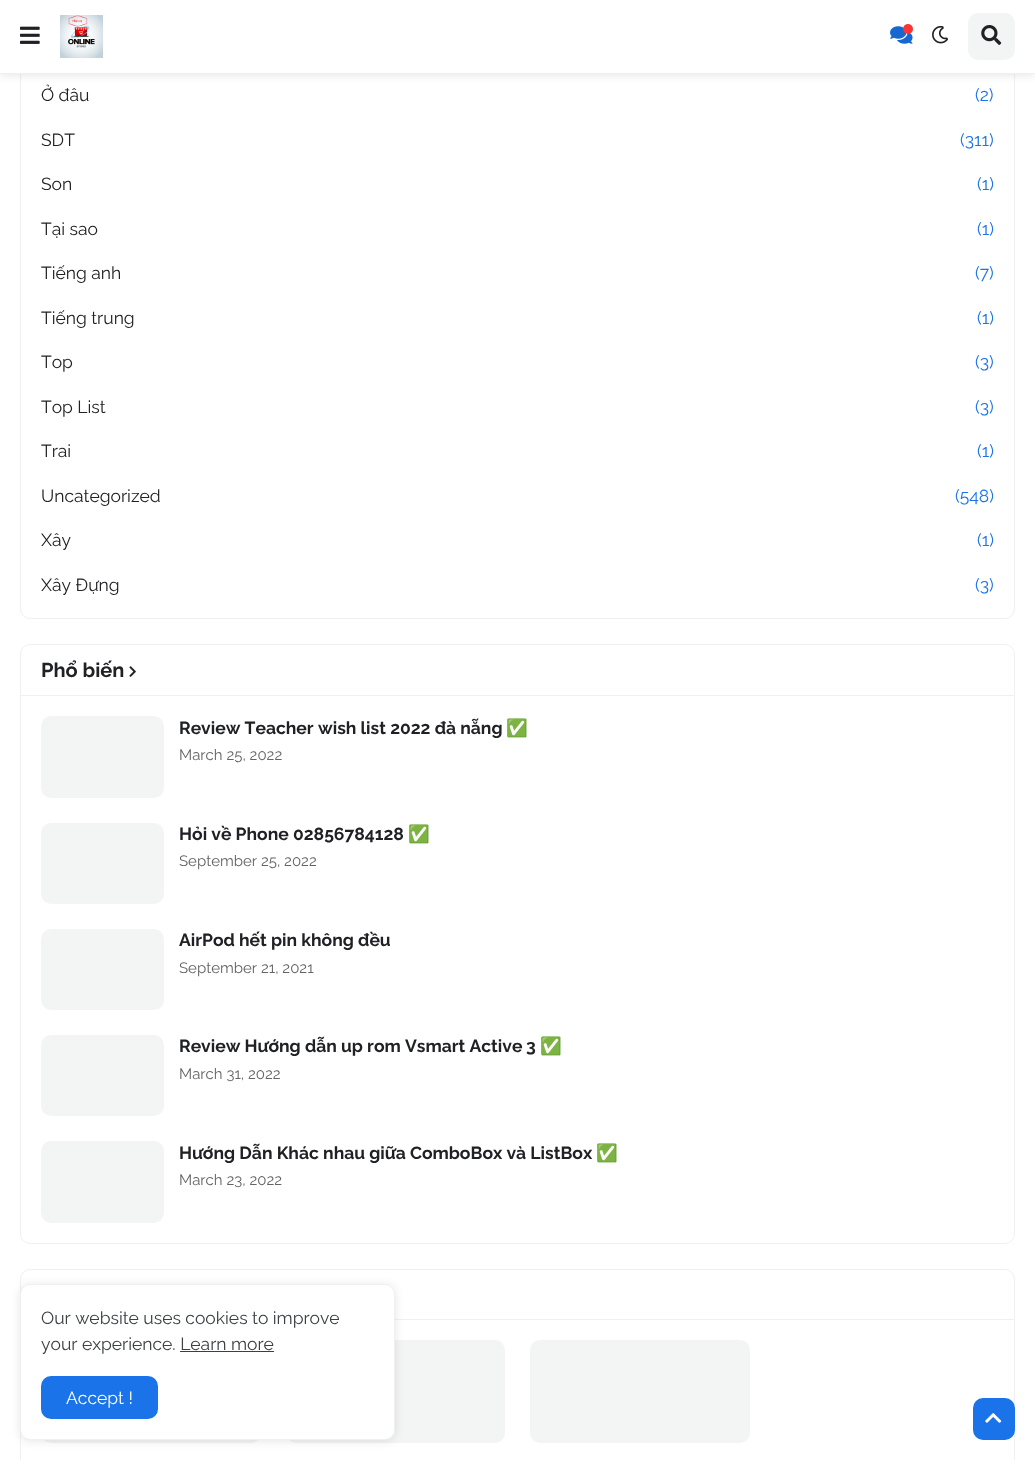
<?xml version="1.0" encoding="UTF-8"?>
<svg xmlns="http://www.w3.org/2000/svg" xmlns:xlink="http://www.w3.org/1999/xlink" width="1035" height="1460">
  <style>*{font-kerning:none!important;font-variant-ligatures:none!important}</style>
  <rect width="100%" height="100%" fill="#ffffff" />
  <rect x="20.5" y="-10.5" width="994" height="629" rx="9.5" fill="none" stroke="#f0f0f0" />
  <rect y="1" width="1035" height="74" fill="#000000" fill-opacity="0.1" filter="blur(5px)" />
  <rect width="1035" height="73" fill="#ffffff" />
  <rect y="73" width="1035" height="1" fill="#f0f0f0" />
  <image x="20" y="26" width="20" height="18" xlink:href="image1.png" />
  <image x="60" y="15" width="43" height="43" xlink:href="image2.png" />
  <image x="890" y="26" width="23" height="18" xlink:href="image3.png" />
  <circle cx="908" cy="29" r="5" fill="#ff3333" />
  <image x="932" y="25" width="16" height="19" xlink:href="image4.png" />
  <rect x="968" y="13" width="47" height="47" rx="10" fill="#f3f5f5" />
  <image x="981" y="25" width="21" height="20" xlink:href="image5.png" />
  <rect x="20.5" y="644.5" width="994" height="599" rx="9.5" fill="none" stroke="#f0f0f0" />
  <rect x="21" y="695" width="993" height="1" fill="#f0f0f0" />
  <image x="129" y="666" width="7" height="11" xlink:href="image6.png" />
  <rect x="41" y="716" width="123" height="82" rx="10" fill="#f3f5f5" />
  <rect x="41" y="823" width="123" height="81" rx="10" fill="#f3f5f5" />
  <rect x="41" y="929" width="123" height="81" rx="10" fill="#f3f5f5" />
  <rect x="41" y="1035" width="123" height="81" rx="10" fill="#f3f5f5" />
  <rect x="41" y="1141" width="123" height="82" rx="10" fill="#f3f5f5" />
  <rect x="20.5" y="1269.5" width="994" height="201" rx="9.5" fill="none" stroke="#f0f0f0" />
  <rect x="395" y="1319" width="619" height="1" fill="#f0f0f0" />
  <rect x="41" y="1340" width="220" height="103" rx="10" fill="#f3f5f5" />
  <rect x="286" y="1340" width="219" height="103" rx="10" fill="#f3f5f5" />
  <rect x="530" y="1340" width="220" height="103" rx="10" fill="#f3f5f5" />
  <rect x="20" y="1285" width="375" height="156" rx="10" fill="#000000" fill-opacity="0.1" filter="blur(5px)" />
  <rect x="20" y="1284" width="375" height="156" rx="10" fill="#ffffff" />
  <rect x="20.5" y="1284.5" width="374" height="155" rx="9.5" fill="none" stroke="#9b9b9b" stroke-opacity="0.15" />
  <rect x="180" y="1351" width="94" height="1" fill="#3c4043" />
  <rect x="41" y="1376" width="117" height="43" rx="10" fill="#1a73e8" />
  <rect x="973" y="1398" width="42" height="42" rx="10" fill="#1a73e8" />
  <image x="985" y="1413" width="17" height="10" xlink:href="image7.png" />
  <text x="41" y="101" style="font-family: Raleway; font-size: 17.5px; fill: #202124">Ở đâu</text>
  <text x="975" y="101" style="font-family: Raleway; font-size: 17.5px; fill: #1a73e8">(2)</text>
  <text x="41" y="146" style="font-family: Raleway; font-size: 17.5px; fill: #202124">SDT</text>
  <text x="960" y="146" style="font-family: Raleway; font-size: 17.5px; fill: #1a73e8">(311)</text>
  <text x="41" y="190" style="font-family: Raleway; font-size: 17.5px; fill: #202124">Son</text>
  <text x="977" y="190" style="font-family: Raleway; font-size: 17.5px; fill: #1a73e8">(1)</text>
  <text x="41" y="235" style="font-family: Raleway; font-size: 17.5px; fill: #202124">Tại sao</text>
  <text x="977" y="235" style="font-family: Raleway; font-size: 17.5px; fill: #1a73e8">(1)</text>
  <text x="41" y="279" style="font-family: Raleway; font-size: 17.5px; fill: #202124">Tiếng anh</text>
  <text x="975" y="279" style="font-family: Raleway; font-size: 17.5px; fill: #1a73e8">(7)</text>
  <text x="41" y="324" style="font-family: Raleway; font-size: 17.5px; fill: #202124">Tiếng trung</text>
  <text x="977" y="324" style="font-family: Raleway; font-size: 17.5px; fill: #1a73e8">(1)</text>
  <text x="41" y="368" style="font-family: Raleway; font-size: 17.5px; fill: #202124">Top</text>
  <text x="975" y="368" style="font-family: Raleway; font-size: 17.5px; fill: #1a73e8">(3)</text>
  <text x="41" y="413" style="font-family: Raleway; font-size: 17.5px; fill: #202124">Top List</text>
  <text x="975" y="413" style="font-family: Raleway; font-size: 17.5px; fill: #1a73e8">(3)</text>
  <text x="41" y="457" style="font-family: Raleway; font-size: 17.5px; fill: #202124">Trai</text>
  <text x="977" y="457" style="font-family: Raleway; font-size: 17.5px; fill: #1a73e8">(1)</text>
  <text x="41" y="502" style="font-family: Raleway; font-size: 17.5px; fill: #202124">Uncategorized</text>
  <text x="955" y="502" style="font-family: Raleway; font-size: 17.5px; fill: #1a73e8">(548)</text>
  <text x="41" y="546" style="font-family: Raleway; font-size: 17.5px; fill: #202124">Xây</text>
  <text x="977" y="546" style="font-family: Raleway; font-size: 17.5px; fill: #1a73e8">(1)</text>
  <text x="41" y="591" style="font-family: Raleway; font-size: 17.5px; fill: #202124">Xây Đựng</text>
  <text x="975" y="591" style="font-family: Raleway; font-size: 17.5px; fill: #1a73e8">(3)</text>
  <text x="41" y="677" style="font-family: Raleway; font-size: 20px; font-weight: bold; fill: #202124">Phổ biến</text>
  <text x="179" y="734" style="font-family: Raleway; font-size: 17.5px; font-weight: bold; fill: #202124">Review Teacher</text>
  <text x="318" y="734" style="font-family: Raleway; font-size: 17.5px; font-weight: bold; fill: #202124">wish list 2022 đà nẵng</text>
  <text x="506" y="734" style="font-family: Noto Color Emoji; font-size: 17.5px; font-weight: bold; fill: #202124">✅</text>
  <text x="179" y="760" style="font-family: Raleway; font-size: 15px; fill: #636466">March 25, 2022</text>
  <text x="179" y="840" style="font-family: Raleway; font-size: 17.5px; font-weight: bold; fill: #202124">Hỏi về Phone 02856784128</text>
  <text x="408" y="840" style="font-family: Noto Color Emoji; font-size: 17.5px; font-weight: bold; fill: #202124">✅</text>
  <text x="179" y="866" style="font-family: Raleway; font-size: 15px; fill: #636466">September 25, 2022</text>
  <text x="179" y="946" style="font-family: Raleway; font-size: 17.5px; font-weight: bold; fill: #202124">AirPod hết pin không đều</text>
  <text x="179" y="973" style="font-family: Raleway; font-size: 15px; fill: #636466">September 21, 2021</text>
  <text x="179" y="1052" style="font-family: Raleway; font-size: 17.5px; font-weight: bold; fill: #202124">Review Hướng dẫn up rom Vsmart Active</text>
  <text x="526" y="1052" style="font-family: Raleway; font-size: 17.5px; font-weight: bold; fill: #202124">3</text>
  <text x="540" y="1052" style="font-family: Noto Color Emoji; font-size: 17.5px; font-weight: bold; fill: #202124">✅</text>
  <text x="179" y="1079" style="font-family: Raleway; font-size: 15px; fill: #636466">March 31, 2022</text>
  <text x="179" y="1159" style="font-family: Raleway; font-size: 17.5px; font-weight: bold; fill: #202124">Hướng Dẫn Khác nhau giữa ComboBox và ListBox</text>
  <text x="596" y="1159" style="font-family: Noto Color Emoji; font-size: 17.5px; font-weight: bold; fill: #202124">✅</text>
  <text x="179" y="1185" style="font-family: Raleway; font-size: 15px; fill: #636466">March 23, 2022</text>
  <text x="41" y="1324" style="font-family: Raleway; font-size: 17.5px; fill: #3c4043">Our website uses cookies to improve</text>
  <text x="41" y="1350" style="font-family: Raleway; font-size: 17.5px; fill: #3c4043">your experience. Learn more</text>
  <text x="66" y="1404" style="font-family: Raleway; font-size: 17.5px; fill: #ffffff">Accept !</text>
</svg>
